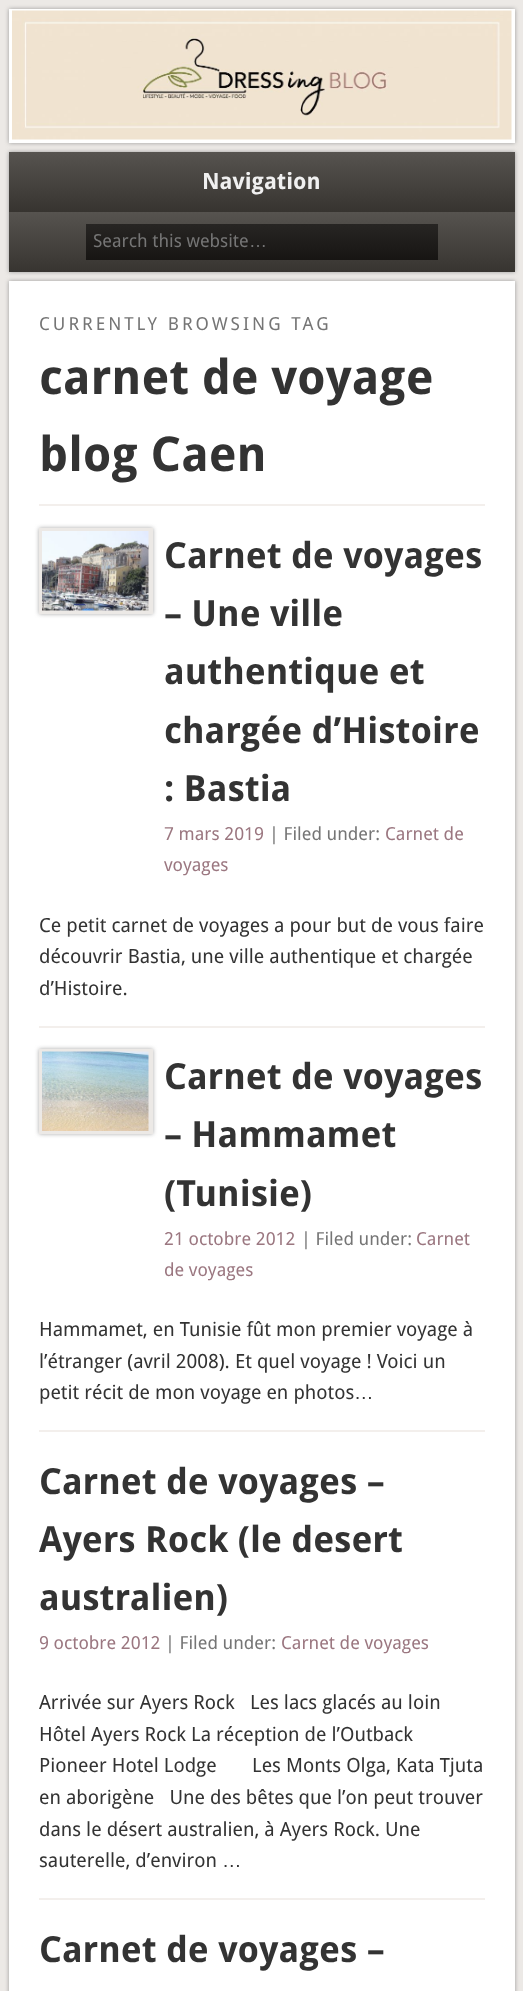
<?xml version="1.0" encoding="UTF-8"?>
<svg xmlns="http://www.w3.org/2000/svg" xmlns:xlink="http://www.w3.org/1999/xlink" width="523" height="1991">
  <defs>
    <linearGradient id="g1" gradientUnits="userSpaceOnUse" x1="262" y1="151" x2="262" y2="332"><stop offset="0" stop-color="#575450" /><stop offset="0.33" stop-color="#373430" /><stop offset="0.33" stop-color="#575450" /><stop offset="0.67" stop-color="#373430" /><stop offset="0.67" stop-color="#575450" /><stop offset="1" stop-color="#373430" /></linearGradient>
    <linearGradient id="g2" gradientUnits="userSpaceOnUse" x1="262" y1="151" x2="262" y2="272"><stop offset="0" stop-color="#575450" /><stop offset="0.5" stop-color="#373430" /><stop offset="0.5" stop-color="#575450" /><stop offset="1" stop-color="#373430" /></linearGradient>
    <linearGradient id="g3" gradientUnits="userSpaceOnUse" x1="262" y1="224" x2="262" y2="260"><stop offset="0" stop-color="#272523" /><stop offset="1" stop-color="#171513" /></linearGradient>
  </defs>
  <rect width="100%" height="100%" fill="#ece9e6" />
  <rect x="9" y="9" width="506" height="134" fill="#999999" filter="blur(2px)" />
  <rect x="9" y="9" width="506" height="134" fill="#ffffff" />
  <image x="12" y="10" width="500" height="130" xlink:href="image1.png" />
  <rect x="9" y="152" width="506" height="120" fill="#999999" filter="blur(2px)" />
  <rect x="9" y="212" width="506" height="60" fill="url(#g1)" />
  <rect x="9" y="152" width="506" height="60" fill="url(#g2)" />
  <rect x="86" y="224" width="352" height="36" fill="url(#g3)" />
  <rect x="9" y="281" width="506" height="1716" fill="#999999" filter="blur(2px)" />
  <rect x="9" y="281" width="506" height="1710" fill="#ffffff" />
  <rect x="39" y="504" width="446" height="2" fill="#f3efec" />
  <rect x="39" y="528" width="114" height="86" fill="#aaaaaa" filter="blur(2px)" />
  <rect x="39" y="528" width="114" height="86" fill="#ece9e6" />
  <image x="42" y="531" width="107" height="80" xlink:href="image2.png" />
  <rect x="39" y="1026" width="446" height="2" fill="#f3efec" />
  <rect x="39" y="1049" width="114" height="85" fill="#aaaaaa" filter="blur(2px)" />
  <rect x="39" y="1049" width="114" height="85" fill="#ece9e6" />
  <image x="42" y="1051" width="107" height="80" xlink:href="image3.png" />
  <rect x="39" y="1430" width="446" height="2" fill="#f3efec" />
  <rect x="39" y="1898" width="446" height="2" fill="#f3efec" />
  <text x="202" y="189" style="font-family: Droid Sans; font-size: 22.5px; font-weight: bold; fill: #f0f0f0">Navigation</text>
  <text x="93" y="247" style="font-family: Droid Sans; font-size: 18px; fill: #757575">Search this website</text>
  <text x="249" y="247" style="font-family: Liberation Sans; font-size: 18px; fill: #757575">…</text>
  <text x="39" y="330" style="font-family: Droid Sans; font-size: 18px; letter-spacing: 3px; fill: #757575">CURRENTLY BROWSING TAG</text>
  <text x="39" y="394" style="font-family: Droid Sans; font-size: 48px; font-weight: bold; fill: #333333">carnet de voyage</text>
  <text x="39" y="471" style="font-family: Droid Sans; font-size: 48px; font-weight: bold; fill: #333333">blog Caen</text>
  <text x="164" y="568" style="font-family: Droid Sans; font-size: 36px; font-weight: bold; fill: #333333">Carnet de voyages</text>
  <text x="164" y="626" style="font-family: Droid Sans; font-size: 36px; font-weight: bold; fill: #333333">– Une ville</text>
  <text x="164" y="684" style="font-family: Droid Sans; font-size: 36px; font-weight: bold; fill: #333333">authentique et</text>
  <text x="164" y="743" style="font-family: Droid Sans; font-size: 36px; font-weight: bold; fill: #333333">chargée d’Histoire</text>
  <text x="164" y="801" style="font-family: Droid Sans; font-size: 36px; font-weight: bold; fill: #333333">: Bastia</text>
  <text x="164" y="840" style="font-family: Droid Sans; font-size: 18px; fill: #9b7780">7 mars 2019</text>
  <text x="269" y="840" style="font-family: Droid Sans; font-size: 18px; fill: #757575">| Filed under:</text>
  <text x="385" y="840" style="font-family: Droid Sans; font-size: 18px; fill: #9b7780">Carnet de</text>
  <text x="164" y="871" style="font-family: Droid Sans; font-size: 18px; fill: #9b7780">voyages</text>
  <text x="39" y="932" style="font-family: Droid Sans; font-size: 19.5px; fill: #333333">Ce petit carnet de voyages a pour but de vous faire</text>
  <text x="39" y="963" style="font-family: Droid Sans; font-size: 19.5px; fill: #333333">découvrir Bastia, une ville authentique et chargée</text>
  <text x="39" y="995" style="font-family: Droid Sans; font-size: 19.5px; fill: #333333">d’Histoire.</text>
  <text x="164" y="1089" style="font-family: Droid Sans; font-size: 36px; font-weight: bold; fill: #333333">Carnet de voyages</text>
  <text x="164" y="1147" style="font-family: Droid Sans; font-size: 36px; font-weight: bold; fill: #333333">– Hammamet</text>
  <text x="164" y="1206" style="font-family: Droid Sans; font-size: 36px; font-weight: bold; fill: #333333">(Tunisie)</text>
  <text x="164" y="1245" style="font-family: Droid Sans; font-size: 18px; fill: #9b7780">21 octobre 2012</text>
  <text x="301" y="1245" style="font-family: Droid Sans; font-size: 18px; fill: #757575">| Filed under:</text>
  <text x="416" y="1245" style="font-family: Droid Sans; font-size: 18px; fill: #9b7780">Carnet</text>
  <text x="164" y="1276" style="font-family: Droid Sans; font-size: 18px; fill: #9b7780">de voyages</text>
  <text x="39" y="1336" style="font-family: Droid Sans; font-size: 19.5px; fill: #333333">Hammamet, en Tunisie fût mon premier voyage à</text>
  <text x="39" y="1368" style="font-family: Droid Sans; font-size: 19.5px; fill: #333333">l’étranger (avril 2008). Et quel voyage ! Voici un</text>
  <text x="39" y="1399" style="font-family: Droid Sans; font-size: 19.5px; fill: #333333">petit récit de mon voyage en photos</text>
  <text x="354" y="1399" style="font-family: Liberation Sans; font-size: 19.5px; fill: #333333">…</text>
  <text x="39" y="1494" style="font-family: Droid Sans; font-size: 36px; font-weight: bold; fill: #333333">Carnet de voyages –</text>
  <text x="39" y="1552" style="font-family: Droid Sans; font-size: 36px; font-weight: bold; fill: #333333">Ayers Rock (le desert</text>
  <text x="39" y="1610" style="font-family: Droid Sans; font-size: 36px; font-weight: bold; fill: #333333">australien)</text>
  <text x="39" y="1649" style="font-family: Droid Sans; font-size: 18px; fill: #9b7780">9 octobre 2012</text>
  <text x="165" y="1649" style="font-family: Droid Sans; font-size: 18px; fill: #757575">| Filed under:</text>
  <text x="281" y="1649" style="font-family: Droid Sans; font-size: 18px; fill: #9b7780">Carnet de voyages</text>
  <text x="39" y="1709" style="font-family: Droid Sans; font-size: 19.5px; fill: #333333" xml:space="preserve">Arrivée sur Ayers Rock   Les lacs glacés au loin</text>
  <text x="39" y="1741" style="font-family: Droid Sans; font-size: 19.5px; fill: #333333">Hôtel Ayers Rock La réception de l’Outback</text>
  <text x="39" y="1772" style="font-family: Droid Sans; font-size: 19.5px; fill: #333333" xml:space="preserve">Pioneer Hotel Lodge       Les Monts Olga, Kata Tjuta</text>
  <text x="39" y="1804" style="font-family: Droid Sans; font-size: 19.5px; fill: #333333" xml:space="preserve">en aborigène   Une des bêtes que l’on peut trouver</text>
  <text x="39" y="1836" style="font-family: Droid Sans; font-size: 19.5px; fill: #333333">dans le désert australien, à Ayers Rock. Une</text>
  <text x="39" y="1867" style="font-family: Droid Sans; font-size: 19.5px; fill: #333333">sauterelle, d’environ</text>
  <text x="222" y="1867" style="font-family: Liberation Sans; font-size: 19.5px; fill: #333333">…</text>
  <text x="39" y="1962" style="font-family: Droid Sans; font-size: 36px; font-weight: bold; fill: #333333">Carnet de voyages –</text>
</svg>
